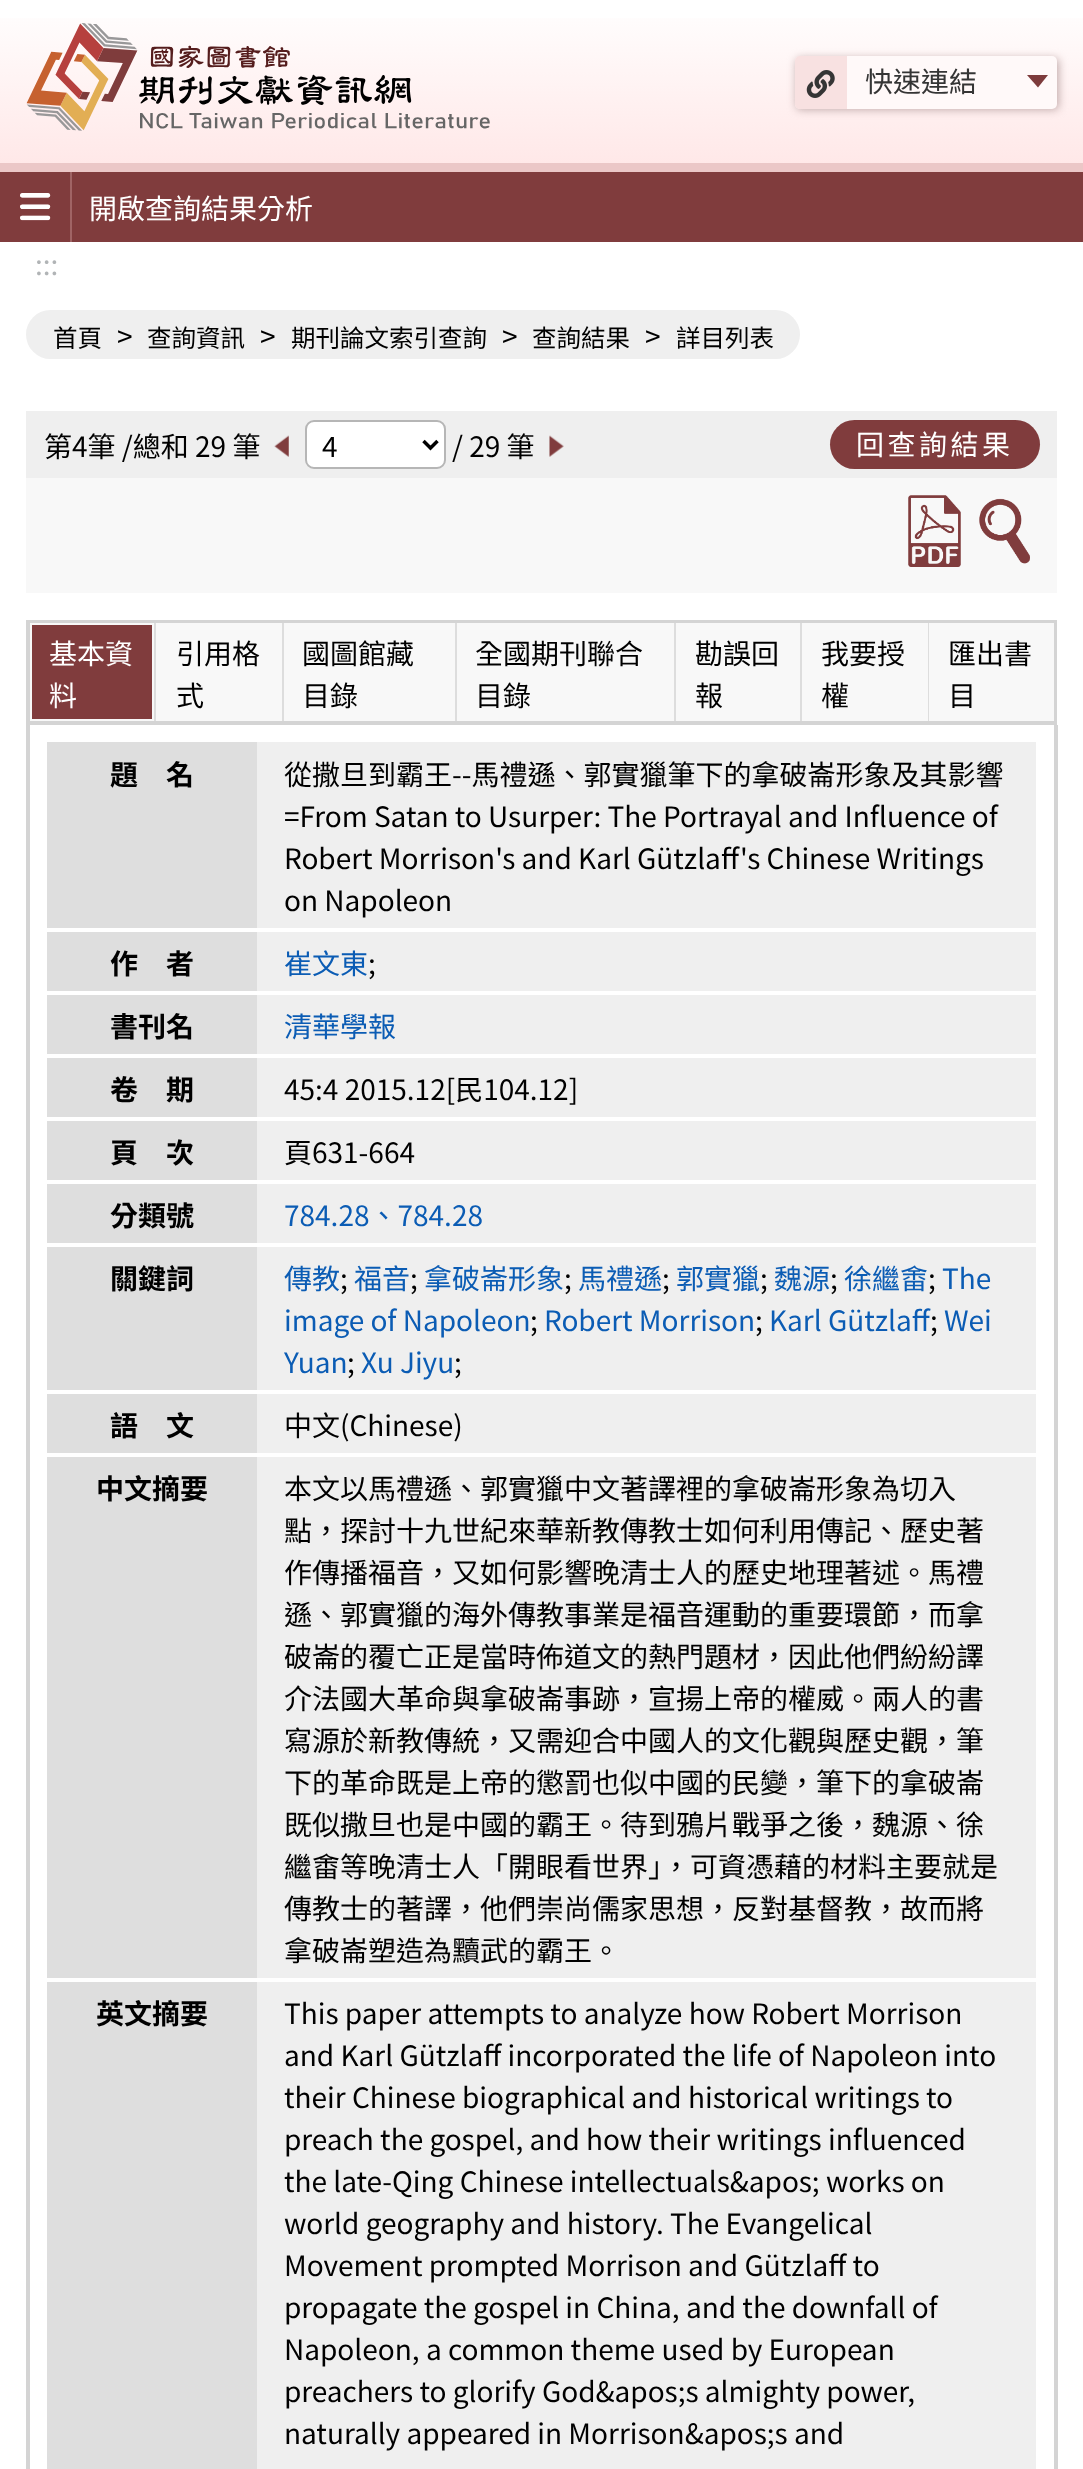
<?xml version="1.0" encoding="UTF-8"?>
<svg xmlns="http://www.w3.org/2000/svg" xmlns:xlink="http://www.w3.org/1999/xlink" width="1083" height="2469">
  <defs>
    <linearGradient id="g1" gradientUnits="userSpaceOnUse" x1="542" y1="0" x2="542" y2="163"><stop offset="0" stop-color="#ffffff" /><stop offset="1" stop-color="#ffe8e8" /></linearGradient>
  </defs>
  <rect width="100%" height="100%" fill="#ffffff" />
  <rect y="18" width="1083" height="145" fill="url(#g1)" />
  <image x="26" y="23" width="464" height="108" xlink:href="image1.png" />
  <rect x="796" y="58" width="263" height="52" rx="5" fill="#c3acac" filter="blur(4.5px)" />
  <rect x="795" y="56" width="262" height="53" rx="5" fill="#fff9f9" />
  <path d="M 800 56 h 47 v 53 h -47 c -3 0 -5 -2 -5 -5 v -43 c 0 -3 2 -5 5 -5 z" fill="#f8e1e1" />
  <image x="806" y="70" width="29" height="28" xlink:href="image2.png" />
  <path d="M 1027 75 h 21 l -10 12.5 z" fill="#7d3b3c" />
  <rect y="172" width="1083" height="70" fill="#803c3d" />
  <rect y="163" width="1083" height="9" fill="#ebc7c7" />
  <rect x="70" y="172" width="2" height="70" fill="#a06465" />
  <image x="20" y="193" width="31" height="28" xlink:href="image3.png" />
  <rect x="26" y="310" width="774" height="49" rx="24.5" fill="#efefef" />
  <rect x="26" y="411" width="1031" height="67" fill="#efefef" />
  <image x="274" y="435" width="15" height="22" xlink:href="image4.png" />
  <rect x="306" y="421" width="139" height="47" rx="8" fill="#ffffff" stroke="#b6b6b6" stroke-width="2" />
  <path d="M 423.5 441 l 7 7 l 7 -7" fill="none" stroke="#000000" stroke-width="3.5" />
  <image x="549" y="435" width="15" height="22" xlink:href="image5.png" />
  <rect x="830" y="420" width="210" height="49" rx="24.5" fill="#803c3d" />
  <rect x="26" y="478" width="1031" height="115" fill="#f8f8f8" />
  <image x="908" y="495" width="53" height="72" xlink:href="image6.png" />
  <image x="979" y="498" width="51" height="66" xlink:href="image7.png" />
  <rect x="158" y="625" width="894" height="94" fill="#f8f8f8" />
  <rect x="28" y="622" width="1027" height="101" fill="none" stroke="#d4d4d4" stroke-width="4" />
  <rect x="31" y="624" width="122" height="96" fill="#803c3d" stroke="#f8f8f8" stroke-width="2" />
  <rect x="154" y="623" width="2" height="98" fill="#dddddd" />
  <rect x="157" y="624" width="124" height="96" fill="none" stroke="#f8f8f8" stroke-width="2" />
  <rect x="282" y="623" width="2" height="98" fill="#dddddd" />
  <rect x="285" y="624" width="169" height="96" fill="none" stroke="#f8f8f8" stroke-width="2" />
  <rect x="455" y="623" width="2" height="98" fill="#dddddd" />
  <rect x="458" y="624" width="215" height="96" fill="none" stroke="#f8f8f8" stroke-width="2" />
  <rect x="674" y="623" width="2" height="98" fill="#dddddd" />
  <rect x="677" y="624" width="122" height="96" fill="none" stroke="#f8f8f8" stroke-width="2" />
  <rect x="800" y="623" width="2" height="98" fill="#dddddd" />
  <rect x="803" y="624" width="124" height="96" fill="none" stroke="#f8f8f8" stroke-width="2" />
  <rect x="928" y="623" width="1" height="98" fill="#dddddd" />
  <rect x="930" y="624" width="123" height="96" fill="none" stroke="#f8f8f8" stroke-width="2" />
  <rect x="1054" y="725" width="4" height="1744" fill="#d4d4d4" />
  <rect x="26" y="725" width="4" height="1744" fill="#d4d4d4" />
  <rect x="257" y="742" width="779" height="1727" fill="#efefef" />
  <rect x="47" y="742" width="210" height="186" fill="#dedede" />
  <rect x="47" y="932" width="210" height="59" fill="#dedede" />
  <rect x="257" y="928" width="779" height="4" fill="#ffffff" />
  <rect x="47" y="995" width="210" height="59" fill="#dedede" />
  <rect x="257" y="991" width="779" height="4" fill="#ffffff" />
  <rect x="47" y="1058" width="210" height="59" fill="#dedede" />
  <rect x="257" y="1054" width="779" height="4" fill="#ffffff" />
  <rect x="47" y="1121" width="210" height="59" fill="#dedede" />
  <rect x="257" y="1117" width="779" height="4" fill="#ffffff" />
  <rect x="47" y="1184" width="210" height="59" fill="#dedede" />
  <rect x="257" y="1180" width="779" height="4" fill="#ffffff" />
  <rect x="47" y="1247" width="210" height="143" fill="#dedede" />
  <rect x="257" y="1243" width="779" height="4" fill="#ffffff" />
  <rect x="47" y="1394" width="210" height="59" fill="#dedede" />
  <rect x="257" y="1390" width="779" height="4" fill="#ffffff" />
  <rect x="47" y="1457" width="210" height="521" fill="#dedede" />
  <rect x="257" y="1453" width="779" height="4" fill="#ffffff" />
  <rect x="47" y="1982" width="210" height="487" fill="#dedede" />
  <rect x="257" y="1978" width="779" height="4" fill="#ffffff" />
  <text x="865" y="92" style="font-family: Noto Sans TC; font-size: 28px; fill: #353535">快速連結</text>
  <text x="89" y="219" style="font-family: Noto Sans TC; font-size: 28px; fill: #ffffff">開啟查詢結果分析</text>
  <text x="35" y="275" style="font-family: Noto Sans TC; font-size: 28px; fill: #b1b4b6">:::</text>
  <text x="53" y="347" style="font-family: Noto Sans TC; font-size: 24.5px; fill: #000000">首頁</text>
  <text x="117" y="347" style="font-family: Noto Sans TC; font-size: 28px; fill: #000000">&gt;</text>
  <text x="147" y="347" style="font-family: Noto Sans TC; font-size: 24.5px; fill: #000000">查詢資訊</text>
  <text x="260" y="347" style="font-family: Noto Sans TC; font-size: 28px; fill: #000000">&gt;</text>
  <text x="291" y="347" style="font-family: Noto Sans TC; font-size: 24.5px; fill: #000000">期刊論文索引查詢</text>
  <text x="502" y="347" style="font-family: Noto Sans TC; font-size: 28px; fill: #000000">&gt;</text>
  <text x="532" y="347" style="font-family: Noto Sans TC; font-size: 24.5px; fill: #000000">查詢結果</text>
  <text x="645" y="347" style="font-family: Noto Sans TC; font-size: 28px; fill: #000000">&gt;</text>
  <text x="676" y="347" style="font-family: Noto Sans TC; font-size: 24.5px; fill: #000000">詳目列表</text>
  <text x="44" y="457" style="font-family: Noto Sans TC; font-size: 28px; fill: #000000">第4筆 /總和 29 筆</text>
  <text x="322" y="457" style="font-family: Noto Sans TC; font-size: 28px; fill: #000000">4</text>
  <text x="452" y="457" style="font-family: Noto Sans TC; font-size: 28px; fill: #000000">/ 29 筆</text>
  <text x="856" y="455" style="font-family: Noto Sans TC; font-size: 28px; letter-spacing: 3.5px; fill: #ffffff">回查詢結果</text>
  <text x="49" y="664" style="font-family: Noto Sans TC; font-size: 28px; fill: #ffffff">基本資</text>
  <text x="49" y="706" style="font-family: Noto Sans TC; font-size: 28px; fill: #ffffff">料</text>
  <text x="176" y="664" style="font-family: Noto Sans TC; font-size: 28px; fill: #000000">引用格</text>
  <text x="176" y="706" style="font-family: Noto Sans TC; font-size: 28px; fill: #000000">式</text>
  <text x="302" y="664" style="font-family: Noto Sans TC; font-size: 28px; fill: #000000">國圖館藏</text>
  <text x="302" y="706" style="font-family: Noto Sans TC; font-size: 28px; fill: #000000">目錄</text>
  <text x="475" y="664" style="font-family: Noto Sans TC; font-size: 28px; fill: #000000">全國期刊聯合</text>
  <text x="475" y="706" style="font-family: Noto Sans TC; font-size: 28px; fill: #000000">目錄</text>
  <text x="695" y="664" style="font-family: Noto Sans TC; font-size: 28px; fill: #000000">勘誤回</text>
  <text x="695" y="706" style="font-family: Noto Sans TC; font-size: 28px; fill: #000000">報</text>
  <text x="821" y="664" style="font-family: Noto Sans TC; font-size: 28px; fill: #000000">我要授</text>
  <text x="821" y="706" style="font-family: Noto Sans TC; font-size: 28px; fill: #000000">權</text>
  <text x="948" y="664" style="font-family: Noto Sans TC; font-size: 28px; fill: #000000">匯出書</text>
  <text x="948" y="706" style="font-family: Noto Sans TC; font-size: 28px; fill: #000000">目</text>
  <text x="110" y="785" style="font-family: Noto Sans TC; font-size: 28px; font-weight: bold; fill: #000000">題　名</text>
  <text x="284" y="785" style="font-family: Noto Sans TC; font-size: 28px; fill: #000000">從撒旦到霸王--馬禮遜、郭實獵筆下的拿破崙形象及其影響</text>
  <text x="284" y="827" style="font-family: Noto Sans TC; font-size: 28px; fill: #000000">=From Satan to Usurper: The Portrayal and Influence of</text>
  <text x="284" y="869" style="font-family: Noto Sans TC; font-size: 28px; fill: #000000">Robert Morrison's and Karl Gützlaff's Chinese Writings</text>
  <text x="284" y="911" style="font-family: Noto Sans TC; font-size: 28px; fill: #000000">on Napoleon</text>
  <text x="110" y="974" style="font-family: Noto Sans TC; font-size: 28px; font-weight: bold; fill: #000000">作　者</text>
  <text x="284" y="974" style="font-family: Noto Sans TC; font-size: 28px; fill: #0b5cb4">崔文東</text>
  <text x="368" y="974" style="font-family: Noto Sans TC; font-size: 28px; fill: #000000">;</text>
  <text x="110" y="1037" style="font-family: Noto Sans TC; font-size: 28px; font-weight: bold; fill: #000000">書刊名</text>
  <text x="284" y="1037" style="font-family: Noto Sans TC; font-size: 28px; fill: #0b5cb4">清華學報</text>
  <text x="110" y="1100" style="font-family: Noto Sans TC; font-size: 28px; font-weight: bold; fill: #000000">卷　期</text>
  <text x="284" y="1100" style="font-family: Noto Sans TC; font-size: 28px; fill: #000000">45:4 2015.12[民104.12]</text>
  <text x="110" y="1163" style="font-family: Noto Sans TC; font-size: 28px; font-weight: bold; fill: #000000">頁　次</text>
  <text x="284" y="1163" style="font-family: Noto Sans TC; font-size: 28px; fill: #000000">頁631-664</text>
  <text x="110" y="1226" style="font-family: Noto Sans TC; font-size: 28px; font-weight: bold; fill: #000000">分類號</text>
  <text x="284" y="1226" style="font-family: Noto Sans TC; font-size: 28px; fill: #0b5cb4">784.28、784.28</text>
  <text x="110" y="1289" style="font-family: Noto Sans TC; font-size: 28px; font-weight: bold; fill: #000000">關鍵詞</text>
  <text x="284" y="1289" style="font-family: Noto Sans TC; font-size: 28px; fill: #0b5cb4">傳教</text>
  <text x="340" y="1289" style="font-family: Noto Sans TC; font-size: 28px; fill: #000000">;</text>
  <text x="354" y="1289" style="font-family: Noto Sans TC; font-size: 28px; fill: #0b5cb4">福音</text>
  <text x="410" y="1289" style="font-family: Noto Sans TC; font-size: 28px; fill: #000000">;</text>
  <text x="424" y="1289" style="font-family: Noto Sans TC; font-size: 28px; fill: #0b5cb4">拿破崙形象</text>
  <text x="564" y="1289" style="font-family: Noto Sans TC; font-size: 28px; fill: #000000">;</text>
  <text x="578" y="1289" style="font-family: Noto Sans TC; font-size: 28px; fill: #0b5cb4">馬禮遜</text>
  <text x="662" y="1289" style="font-family: Noto Sans TC; font-size: 28px; fill: #000000">;</text>
  <text x="676" y="1289" style="font-family: Noto Sans TC; font-size: 28px; fill: #0b5cb4">郭實獵</text>
  <text x="760" y="1289" style="font-family: Noto Sans TC; font-size: 28px; fill: #000000">;</text>
  <text x="774" y="1289" style="font-family: Noto Sans TC; font-size: 28px; fill: #0b5cb4">魏源</text>
  <text x="830" y="1289" style="font-family: Noto Sans TC; font-size: 28px; fill: #000000">;</text>
  <text x="844" y="1289" style="font-family: Noto Sans TC; font-size: 28px; fill: #0b5cb4">徐繼畬</text>
  <text x="928" y="1289" style="font-family: Noto Sans TC; font-size: 28px; fill: #000000">;</text>
  <text x="942" y="1289" style="font-family: Noto Sans TC; font-size: 28px; fill: #0b5cb4">The</text>
  <text x="284" y="1331" style="font-family: Noto Sans TC; font-size: 28px; fill: #0b5cb4">image of Napoleon</text>
  <text x="530" y="1331" style="font-family: Noto Sans TC; font-size: 28px; fill: #000000">;</text>
  <text x="544" y="1331" style="font-family: Noto Sans TC; font-size: 28px; fill: #0b5cb4">Robert Morrison</text>
  <text x="755" y="1331" style="font-family: Noto Sans TC; font-size: 28px; fill: #000000">;</text>
  <text x="769" y="1331" style="font-family: Noto Sans TC; font-size: 28px; fill: #0b5cb4">Karl Gützlaff</text>
  <text x="930" y="1331" style="font-family: Noto Sans TC; font-size: 28px; fill: #000000">;</text>
  <text x="944" y="1331" style="font-family: Noto Sans TC; font-size: 28px; fill: #0b5cb4">Wei</text>
  <text x="284" y="1373" style="font-family: Noto Sans TC; font-size: 28px; fill: #0b5cb4">Yuan</text>
  <text x="347" y="1373" style="font-family: Noto Sans TC; font-size: 28px; fill: #000000">;</text>
  <text x="361" y="1373" style="font-family: Noto Sans TC; font-size: 28px; fill: #0b5cb4">Xu Jiyu</text>
  <text x="454" y="1373" style="font-family: Noto Sans TC; font-size: 28px; fill: #000000">;</text>
  <text x="110" y="1436" style="font-family: Noto Sans TC; font-size: 28px; font-weight: bold; fill: #000000">語　文</text>
  <text x="284" y="1436" style="font-family: Noto Sans TC; font-size: 28px; fill: #000000">中文(Chinese)</text>
  <text x="96" y="1499" style="font-family: Noto Sans TC; font-size: 28px; font-weight: bold; fill: #000000">中文摘要</text>
  <text x="284" y="1499" style="font-family: Noto Sans TC; font-size: 28px; fill: #000000">本文以馬禮遜、郭實獵中文著譯裡的拿破崙形象為切入</text>
  <text x="284" y="1541" style="font-family: Noto Sans TC; font-size: 28px; fill: #000000">點，探討十九世紀來華新教傳教士如何利用傳記、歷史著</text>
  <text x="284" y="1583" style="font-family: Noto Sans TC; font-size: 28px; fill: #000000">作傳播福音，又如何影響晚清士人的歷史地理著述。馬禮</text>
  <text x="284" y="1625" style="font-family: Noto Sans TC; font-size: 28px; fill: #000000">遜、郭實獵的海外傳教事業是福音運動的重要環節，而拿</text>
  <text x="284" y="1667" style="font-family: Noto Sans TC; font-size: 28px; fill: #000000">破崙的覆亡正是當時佈道文的熱門題材，因此他們紛紛譯</text>
  <text x="284" y="1709" style="font-family: Noto Sans TC; font-size: 28px; fill: #000000">介法國大革命與拿破崙事跡，宣揚上帝的權威。兩人的書</text>
  <text x="284" y="1751" style="font-family: Noto Sans TC; font-size: 28px; fill: #000000">寫源於新教傳統，又需迎合中國人的文化觀與歷史觀，筆</text>
  <text x="284" y="1793" style="font-family: Noto Sans TC; font-size: 28px; fill: #000000">下的革命既是上帝的懲罰也似中國的民變，筆下的拿破崙</text>
  <text x="284" y="1835" style="font-family: Noto Sans TC; font-size: 28px; fill: #000000">既似撒旦也是中國的霸王。待到鴉片戰爭之後，魏源、徐</text>
  <text x="284" y="1877" style="font-family: Noto Sans TC; font-size: 28px; fill: #000000">繼畬等晚清士人「開眼看世界」，可資憑藉的材料主要就是</text>
  <text x="284" y="1919" style="font-family: Noto Sans TC; font-size: 28px; fill: #000000">傳教士的著譯，他們崇尚儒家思想，反對基督教，故而將</text>
  <text x="284" y="1961" style="font-family: Noto Sans TC; font-size: 28px; fill: #000000">拿破崙塑造為黷武的霸王。</text>
  <text x="96" y="2024" style="font-family: Noto Sans TC; font-size: 28px; font-weight: bold; fill: #000000">英文摘要</text>
  <text x="284" y="2024" style="font-family: Noto Sans TC; font-size: 28px; fill: #000000">This paper attempts to analyze how Robert Morrison</text>
  <text x="284" y="2066" style="font-family: Noto Sans TC; font-size: 28px; fill: #000000">and Karl Gützlaff incorporated the life of Napoleon into</text>
  <text x="284" y="2108" style="font-family: Noto Sans TC; font-size: 28px; fill: #000000">their Chinese biographical and historical writings to</text>
  <text x="284" y="2150" style="font-family: Noto Sans TC; font-size: 28px; fill: #000000">preach the gospel, and how their writings influenced</text>
  <text x="284" y="2192" style="font-family: Noto Sans TC; font-size: 28px; fill: #000000">the late-Qing Chinese intellectuals&amp;apos; works on</text>
  <text x="284" y="2234" style="font-family: Noto Sans TC; font-size: 28px; fill: #000000">world geography and history. The Evangelical</text>
  <text x="284" y="2276" style="font-family: Noto Sans TC; font-size: 28px; fill: #000000">Movement prompted Morrison and Gützlaff to</text>
  <text x="284" y="2318" style="font-family: Noto Sans TC; font-size: 28px; fill: #000000">propagate the gospel in China, and the downfall of</text>
  <text x="284" y="2360" style="font-family: Noto Sans TC; font-size: 28px; fill: #000000">Napoleon, a common theme used by European</text>
  <text x="284" y="2402" style="font-family: Noto Sans TC; font-size: 28px; fill: #000000">preachers to glorify God&amp;apos;s almighty power,</text>
  <text x="284" y="2444" style="font-family: Noto Sans TC; font-size: 28px; fill: #000000">naturally appeared in Morrison&amp;apos;s and</text>
</svg>
